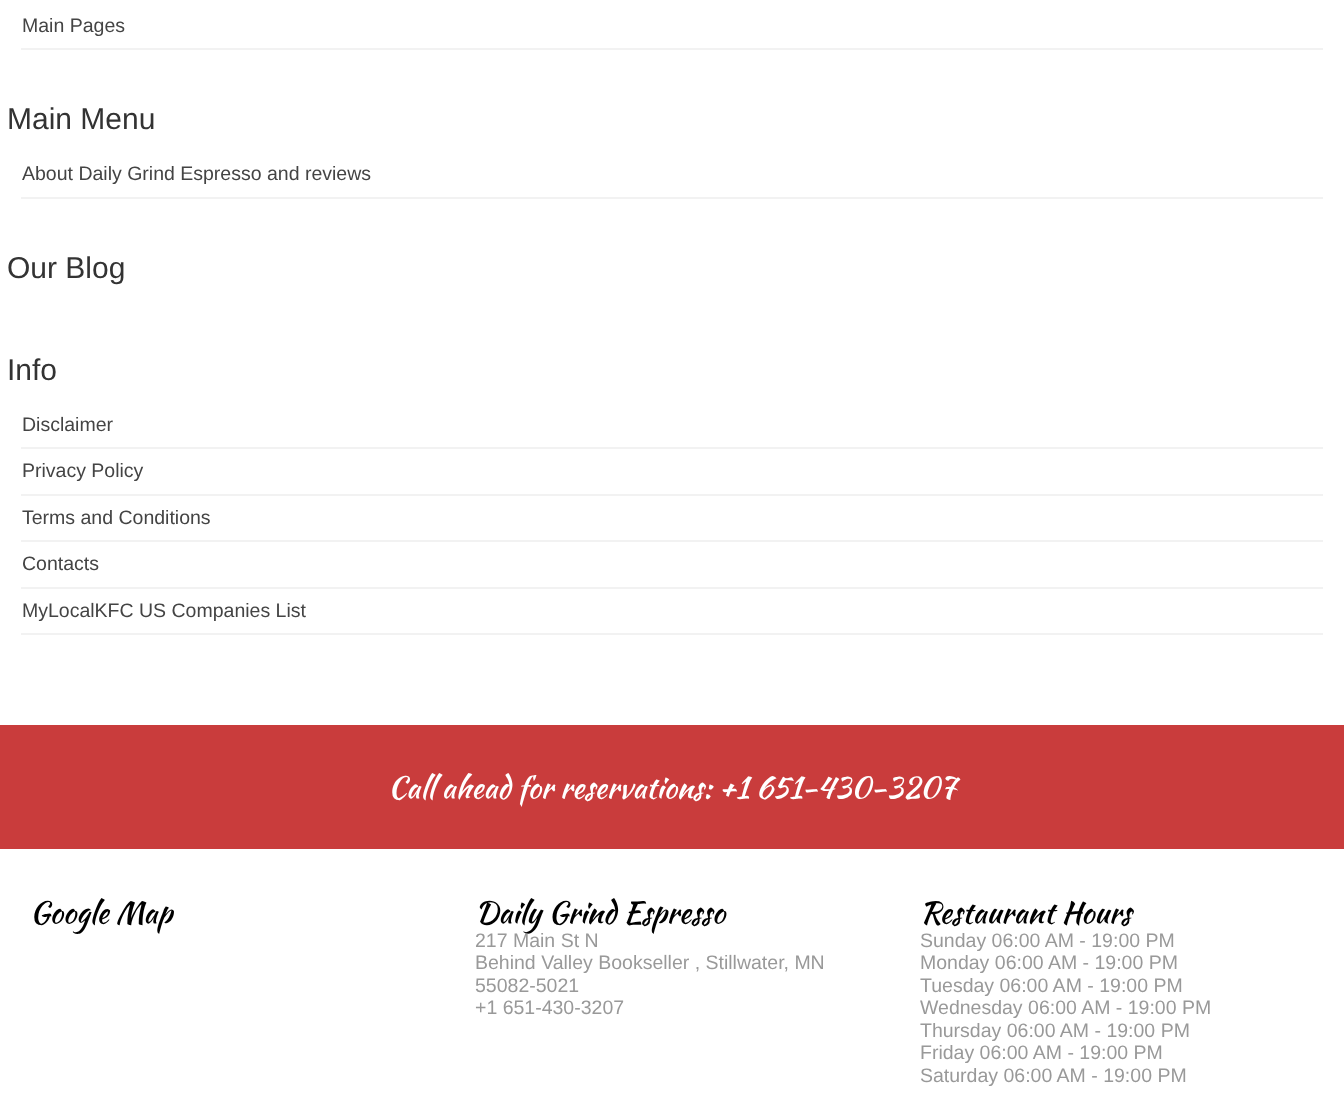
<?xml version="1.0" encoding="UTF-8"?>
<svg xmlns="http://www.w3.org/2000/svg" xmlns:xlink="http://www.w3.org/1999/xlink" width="1344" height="1112">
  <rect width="100%" height="100%" fill="#ffffff" />
  <rect x="21" y="48" width="1302" height="2" fill="#f2f2f2" />
  <rect x="21" y="197" width="1302" height="2" fill="#f2f2f2" />
  <rect x="21" y="447" width="1302" height="2" fill="#f2f2f2" />
  <rect x="21" y="494" width="1302" height="2" fill="#f2f2f2" />
  <rect x="21" y="540" width="1302" height="2" fill="#f2f2f2" />
  <rect x="21" y="587" width="1302" height="2" fill="#f2f2f2" />
  <rect x="21" y="633" width="1302" height="2" fill="#f2f2f2" />
  <rect y="725" width="1344" height="124" fill="#c93c3c" />
  <text x="22" y="32" style="font-family: Liberation Sans; font-size: 19.5px; fill: #444444">Main Pages</text>
  <text x="7" y="129" style="font-family: Liberation Sans; font-size: 30px; fill: #333333">Main Menu</text>
  <text x="22" y="180" style="font-family: Liberation Sans; font-size: 19.5px; fill: #444444">About Daily Grind Espresso and reviews</text>
  <text x="7" y="278" style="font-family: Liberation Sans; font-size: 30px; fill: #333333">Our Blog</text>
  <text x="7" y="380" style="font-family: Liberation Sans; font-size: 30px; fill: #333333">Info</text>
  <text x="22" y="431" style="font-family: Liberation Sans; font-size: 19.5px; fill: #444444">Disclaimer</text>
  <text x="22" y="477" style="font-family: Liberation Sans; font-size: 19.5px; fill: #444444">Privacy Policy</text>
  <text x="22" y="524" style="font-family: Liberation Sans; font-size: 19.5px; fill: #444444">Terms and Conditions</text>
  <text x="22" y="570" style="font-family: Liberation Sans; font-size: 19.5px; fill: #444444">Contacts</text>
  <text x="22" y="617" style="font-family: Liberation Sans; font-size: 19.5px; fill: #444444">MyLocalKFC US Companies List</text>
  <text x="388" y="798" style="font-family: Kaushan Script; font-size: 30px; fill: #ffffff">Call ahead for reservations: +1 651-430-3207</text>
  <text x="30" y="923" style="font-family: Kaushan Script; font-size: 30px; fill: #000000">Google Map</text>
  <text x="475" y="923" style="font-family: Kaushan Script; font-size: 30px; fill: #000000">Daily Grind Espresso</text>
  <text x="475" y="947" style="font-family: Liberation Sans; font-size: 19.5px; fill: #999999">217 Main St N</text>
  <text x="475" y="969" style="font-family: Liberation Sans; font-size: 19.5px; fill: #999999">Behind Valley Bookseller , Stillwater, MN</text>
  <text x="475" y="992" style="font-family: Liberation Sans; font-size: 19.5px; fill: #999999">55082-5021</text>
  <text x="475" y="1014" style="font-family: Liberation Sans; font-size: 19.5px; fill: #999999">+1 651-430-3207</text>
  <text x="920" y="923" style="font-family: Kaushan Script; font-size: 30px; fill: #000000">Restaurant Hours</text>
  <text x="920" y="947" style="font-family: Liberation Sans; font-size: 19.5px; fill: #999999">Sunday 06:00 AM - 19:00 PM</text>
  <text x="920" y="969" style="font-family: Liberation Sans; font-size: 19.5px; fill: #999999">Monday 06:00 AM - 19:00 PM</text>
  <text x="920" y="992" style="font-family: Liberation Sans; font-size: 19.5px; fill: #999999">Tuesday 06:00 AM - 19:00 PM</text>
  <text x="920" y="1014" style="font-family: Liberation Sans; font-size: 19.5px; fill: #999999">Wednesday 06:00 AM - 19:00 PM</text>
  <text x="920" y="1037" style="font-family: Liberation Sans; font-size: 19.5px; fill: #999999">Thursday 06:00 AM - 19:00 PM</text>
  <text x="920" y="1059" style="font-family: Liberation Sans; font-size: 19.5px; fill: #999999">Friday 06:00 AM - 19:00 PM</text>
  <text x="920" y="1082" style="font-family: Liberation Sans; font-size: 19.5px; fill: #999999">Saturday 06:00 AM - 19:00 PM</text>
</svg>
